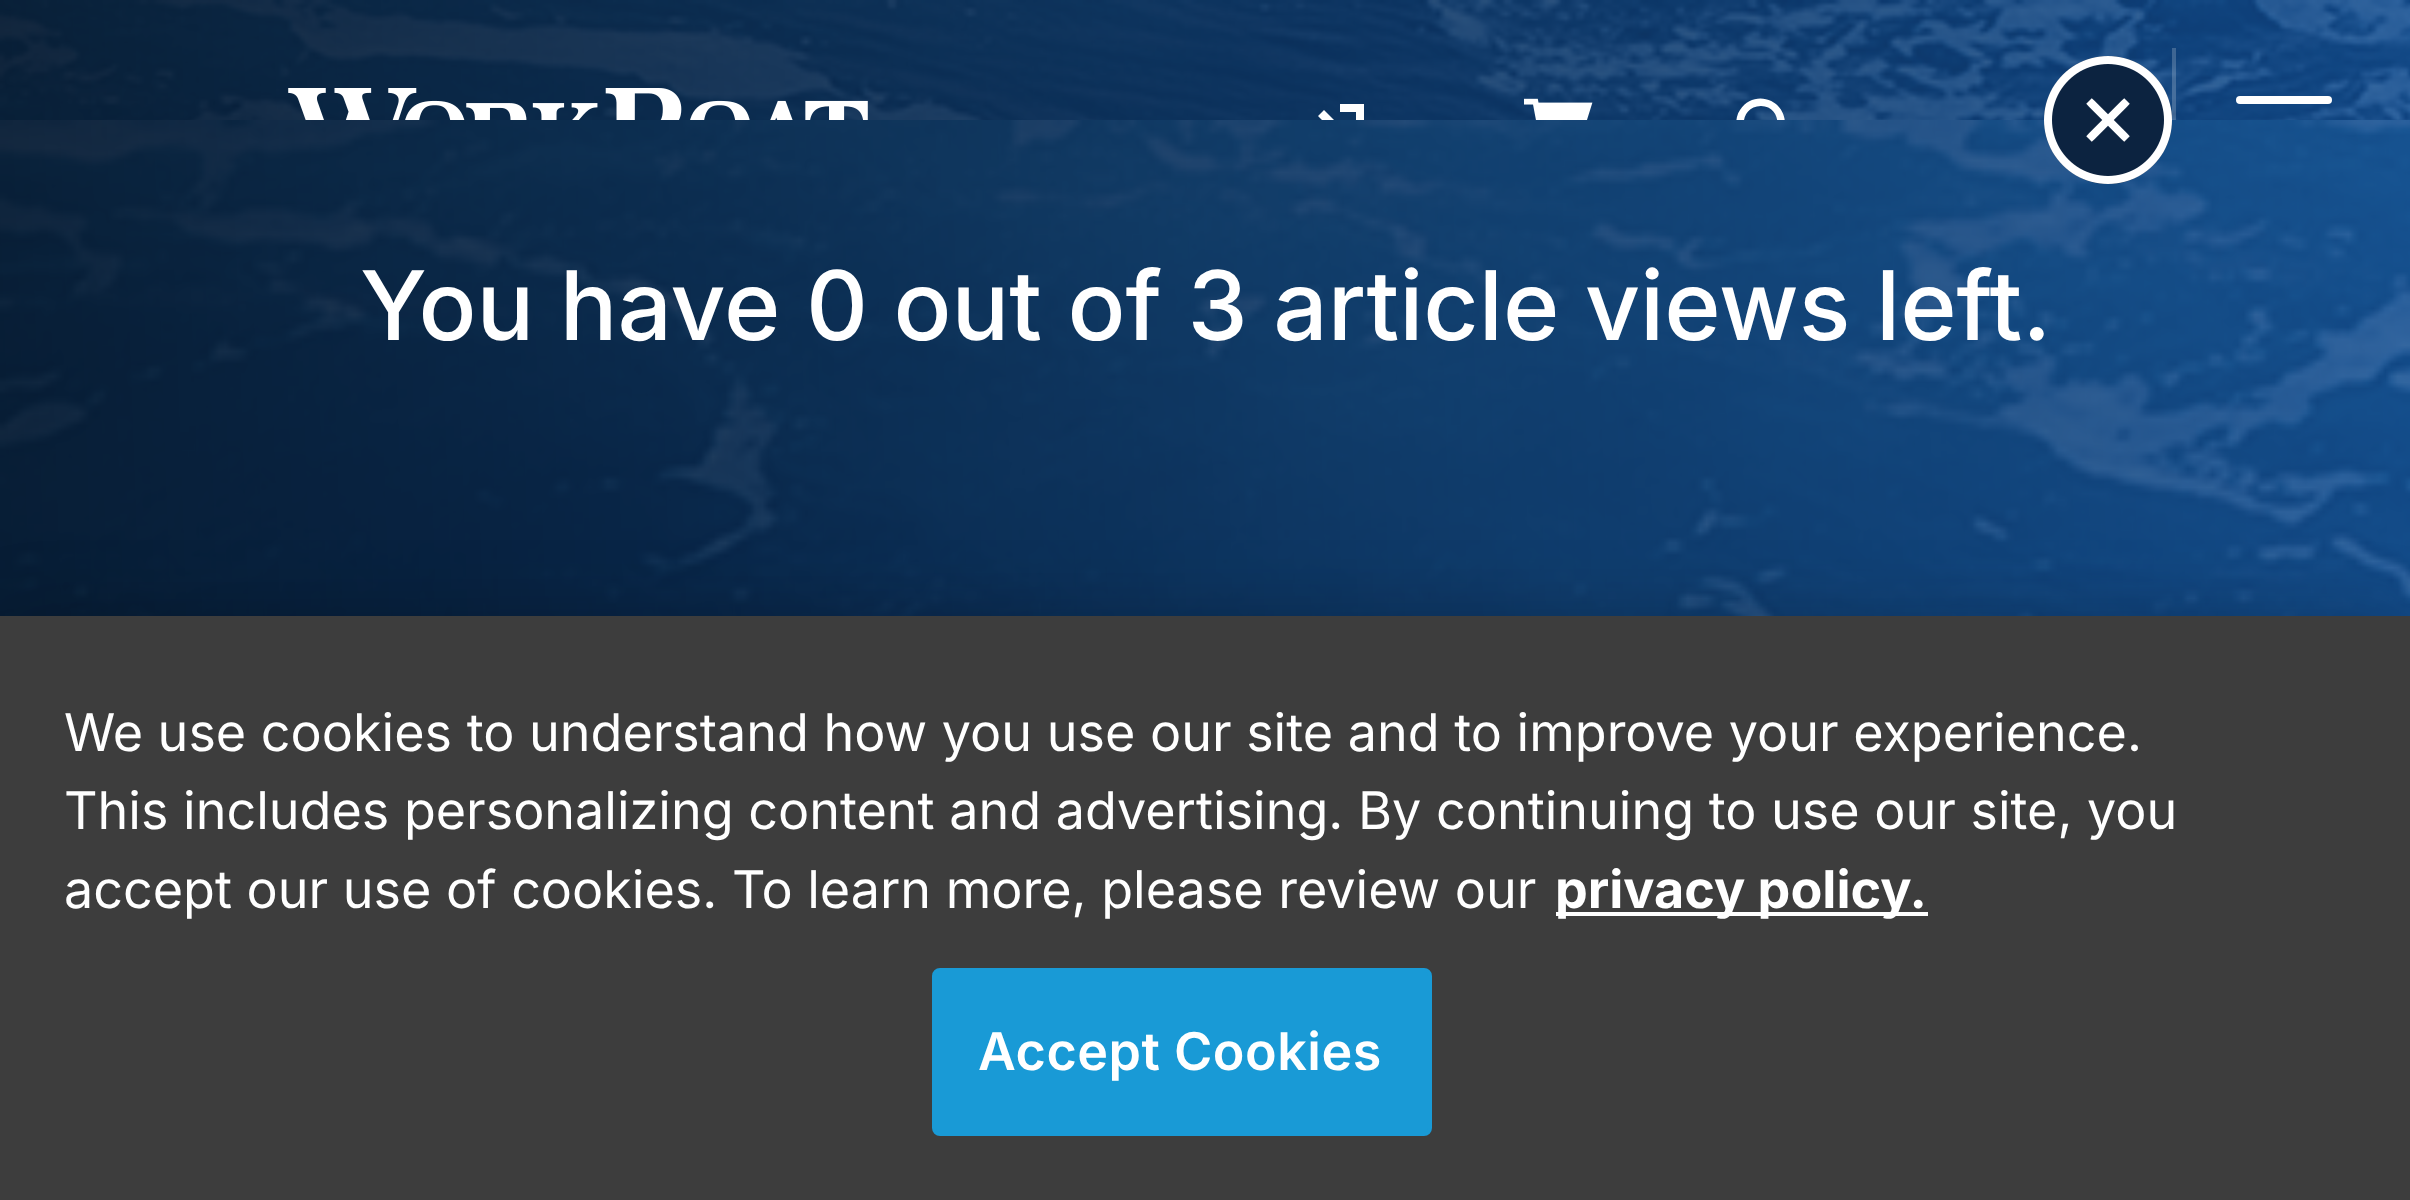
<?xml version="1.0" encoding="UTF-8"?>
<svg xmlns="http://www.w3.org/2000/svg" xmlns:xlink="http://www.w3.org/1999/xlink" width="2410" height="1200">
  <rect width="100%" height="100%" fill="#ffffff" />
  <image x="0" y="0" width="2410" height="120" xlink:href="image1.png" />
  <image x="288" y="88" width="580" height="32" xlink:href="image2.png" />
  <path d="M 1344 112 h 12 v 40 h -16 v 8 h 24 v -56 h -24 v 8 z m -1 23 l 3 -3 l -22 -22 l -6 6 l 12 12 h -30 v 8 h 30 l -12 12 l 6 6 z" fill="#ffffff" />
  <image x="1524" y="98" width="69" height="22" xlink:href="image3.png" />
  <path d="M 1785 124 c 0 5 -1 10 -4 14 l 15 16 l -5 5 l -16 -16 c -9 7 -21 7 -30 0 c -5 -5 -8 -10 -9 -17 c 0 -6 1 -12 4 -16 c 14 -21 45 -11 45 14 z m -24 17 c 22 0 22 -35 0 -35 c -23 0 -23 35 0 35 z" fill="#ffffff" />
  <rect x="2172" y="48" width="4" height="72" fill="#ffffff" fill-opacity="0.2" />
  <rect x="2236" y="96" width="96" height="8" rx="4" fill="#ffffff" />
  <image x="0" y="120" width="2410" height="496" xlink:href="image4.png" />
  <circle cx="2108" cy="120" r="64" fill="#0c2340" />
  <image x="2044" y="56" width="128" height="128" xlink:href="image5.png" />
  <rect y="616" width="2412" height="584" fill="#000000" fill-opacity="0.2" filter="blur(36px)" />
  <rect y="616" width="2410" height="584" fill="#3d3d3d" />
  <rect x="1556" y="912" width="372" height="4" fill="#ffffff" />
  <rect x="934" y="970" width="496" height="164" rx="6" fill="#199ad6" stroke="#199ad6" stroke-width="4" />
  <text x="360" y="340" style="font-family: Inter; font-size: 96px; font-weight: 500; fill: #ffffff">You have 0 out of 3 article views left.</text>
  <text x="64" y="751" style="font-family: Inter; font-size: 52.05px; fill: #ffffff">We use cookies to understand how you use our site and to improve your experience.</text>
  <text x="64" y="829" style="font-family: Inter; font-size: 52.05px; fill: #ffffff">This includes personalizing content and advertising. By continuing to use our site, you</text>
  <text x="64" y="908" style="font-family: Inter; font-size: 52.05px; fill: #ffffff">accept our use of cookies. To learn more, please review our</text>
  <text x="1555" y="908" style="font-family: Inter; font-size: 52.05px; font-weight: bold; fill: #ffffff">privacy policy.</text>
  <text x="978" y="1070" style="font-family: Inter; font-size: 52.05px; font-weight: 600; letter-spacing: 0.5px; fill: #ffffff">Accept Cookies</text>
</svg>
